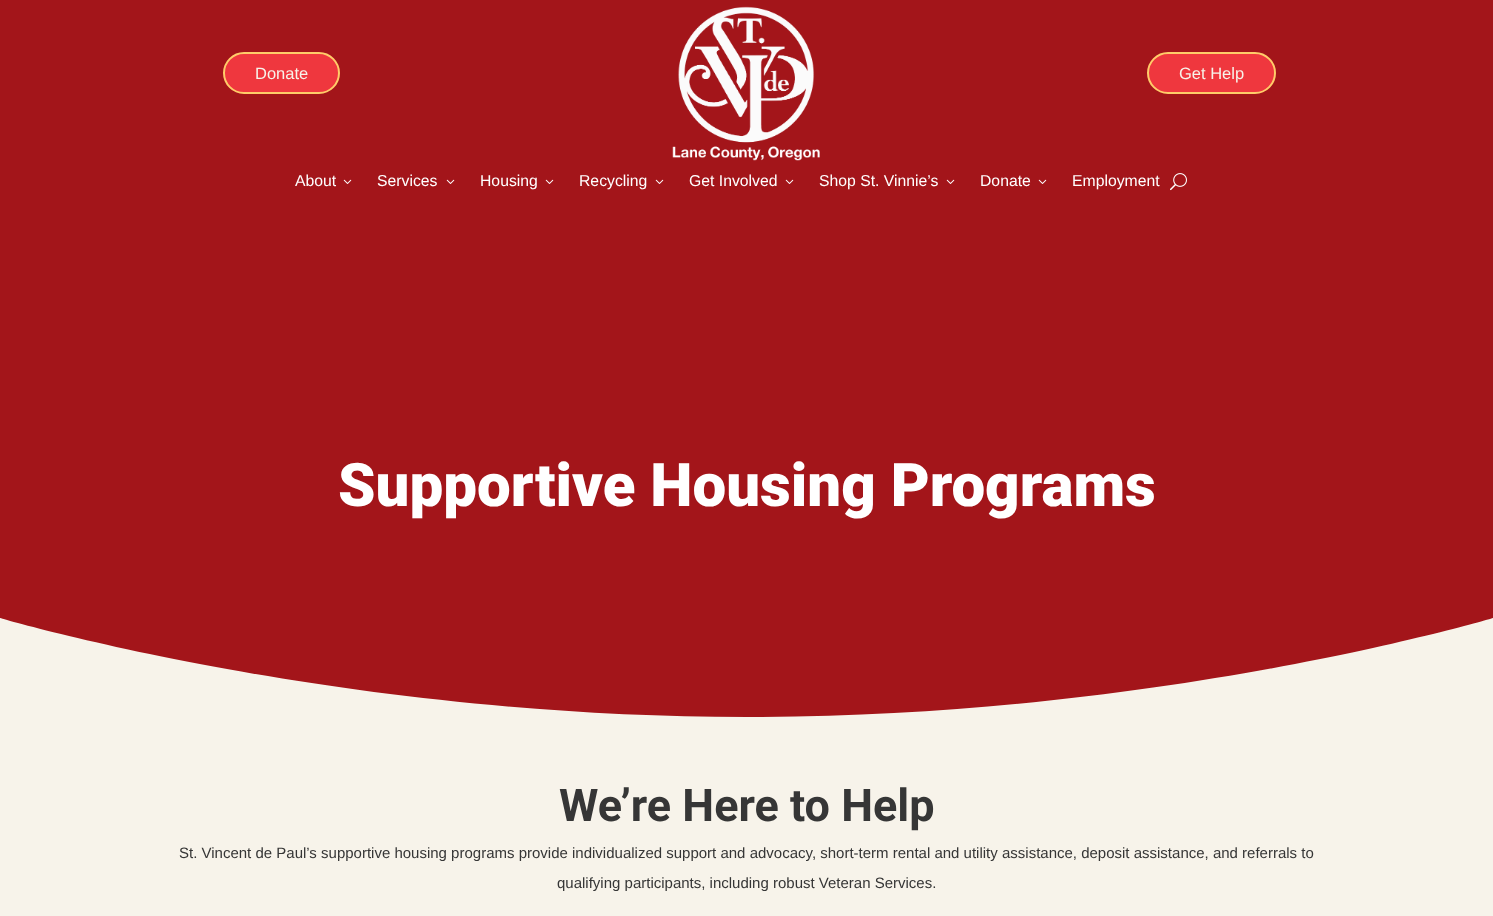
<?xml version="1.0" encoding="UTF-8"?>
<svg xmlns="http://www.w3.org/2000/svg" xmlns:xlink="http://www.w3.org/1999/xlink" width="1493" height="916">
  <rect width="100%" height="100%" fill="#a3151a" />
  <rect x="224" y="53" width="115" height="40" rx="20" fill="#ef373e" stroke="#ffcc69" stroke-width="2" />
  <image x="672" y="6" width="148" height="155" xlink:href="image1.png" />
  <rect x="1148" y="53" width="127" height="40" rx="20" fill="#ef373e" stroke="#ffcc69" stroke-width="2" />
  <image x="343" y="179" width="9" height="5" xlink:href="image2.png" />
  <image x="446" y="179" width="9" height="5" xlink:href="image2.png" />
  <image x="545" y="179" width="9" height="5" xlink:href="image2.png" />
  <image x="655" y="179" width="9" height="5" xlink:href="image2.png" />
  <image x="785" y="179" width="9" height="5" xlink:href="image2.png" />
  <image x="946" y="179" width="9" height="5" xlink:href="image2.png" />
  <image x="1038" y="179" width="9" height="5" xlink:href="image2.png" />
  <image x="1170" y="173" width="17" height="18" xlink:href="image3.png" />
  <path d="M 1493 718 v -100 c 0 0 -334 100 -747 99 c -412 0 -746 -99 -746 -99 v 100 z" fill="#f7f3ea" />
  <rect y="718" width="1493" height="198" fill="#f7f3ea" />
  <text x="255" y="79" style="font-family: Liberation Sans; font-size: 16.5px; fill: #f7f3ea">Donate</text>
  <text x="1179" y="79" style="font-family: Liberation Sans; font-size: 16.5px; fill: #f7f3ea">Get Help</text>
  <text x="295" y="186" style="font-family: Liberation Sans; font-size: 15.75px; fill: #ffffff">About</text>
  <text x="377" y="186" style="font-family: Liberation Sans; font-size: 15.75px; fill: #ffffff">Services</text>
  <text x="480" y="186" style="font-family: Liberation Sans; font-size: 15.75px; fill: #ffffff">Housing</text>
  <text x="579" y="186" style="font-family: Liberation Sans; font-size: 15.75px; fill: #ffffff">Recycling</text>
  <text x="689" y="186" style="font-family: Liberation Sans; font-size: 15.75px; fill: #ffffff">Get Involved</text>
  <text x="819" y="186" style="font-family: Liberation Sans; font-size: 15.75px; fill: #ffffff">Shop St. Vinnie’s</text>
  <text x="980" y="186" style="font-family: Liberation Sans; font-size: 15.75px; fill: #ffffff">Donate</text>
  <text x="1072" y="186" style="font-family: Liberation Sans; font-size: 15.75px; fill: #ffffff">Employment</text>
  <text x="338" y="506" style="font-family: Roboto; font-size: 60px; font-weight: 900; fill: #ffffff">Supportive Housing Programs</text>
  <text x="559" y="821" style="font-family: Roboto; font-size: 45px; font-weight: bold; fill: #363636">We’re Here to Help</text>
  <text x="179" y="858" style="font-family: Liberation Sans; font-size: 15px; fill: #363636">St. Vincent de Paul’s supportive housing programs provide individualized support and advocacy, short-term rental and utility assistance, deposit assistance, and referrals to</text>
  <text x="557" y="888" style="font-family: Liberation Sans; font-size: 15px; fill: #363636">qualifying participants, including robust Veteran Services.</text>
</svg>
